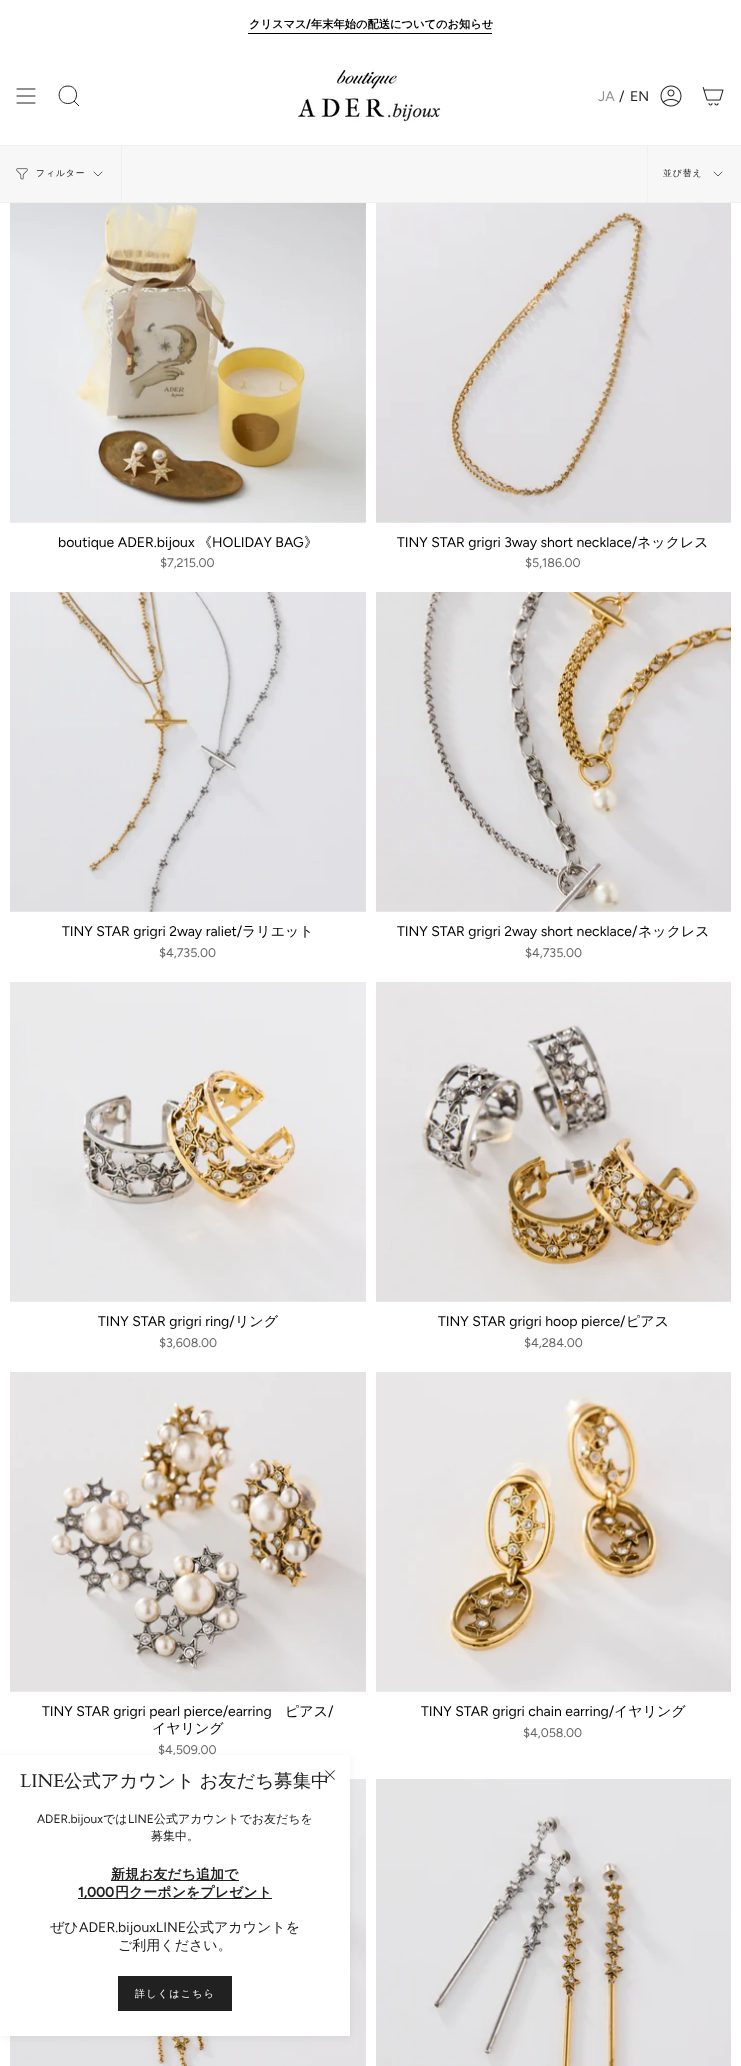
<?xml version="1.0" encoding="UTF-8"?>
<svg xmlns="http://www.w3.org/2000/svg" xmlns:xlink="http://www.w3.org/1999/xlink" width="741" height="2066">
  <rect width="100%" height="100%" fill="#ffffff" />
  <rect x="248" y="33" width="244" height="1" fill="#000000" />
  <path d="M 17 89 h 18 m -18 7 h 18 m -18 7 h 18" fill="none" stroke="#212121" stroke-linecap="round" stroke-linejoin="round" />
  <path d="M 68 86 c 11.5 0 11.5 18 -0.5 17.5 c -11.5 -0.5 -11 -17.5 0.5 -17.5 z m 6 15 l 5 5" fill="none" stroke="#212121" />
  <image x="298" y="70" width="143" height="53" xlink:href="image1.png" />
  <image x="660" y="85" width="22" height="22" xlink:href="image2.png" />
  <image x="702" y="87" width="22" height="19" xlink:href="image3.png" />
  <rect y="146" width="741" height="56" fill="#f7f7f7" />
  <rect y="145" width="741" height="1" fill="#f0f0f0" />
  <rect y="202" width="741" height="1" fill="#f0f0f0" />
  <rect x="121" y="146" width="1" height="56" fill="#f0f0f0" />
  <image x="16" y="168" width="12" height="12" xlink:href="image4.png" />
  <path d="M 94 172 l 4 4 l 4 -4" fill="none" stroke="#212121" stroke-width="0.7" stroke-linecap="round" stroke-linejoin="round" />
  <rect x="647" y="146" width="1" height="56" fill="#f0f0f0" />
  <path d="M 714 172 l 4 4 l 4 -4" fill="none" stroke="#212121" stroke-width="0.7" stroke-linecap="round" stroke-linejoin="round" />
  <image x="10" y="203" width="356" height="320" xlink:href="image5.png" />
  <image x="376" y="203" width="355" height="320" xlink:href="image6.png" />
  <image x="10" y="592" width="356" height="320" xlink:href="image7.png" />
  <image x="376" y="592" width="355" height="320" xlink:href="image8.png" />
  <image x="10" y="982" width="356" height="320" xlink:href="image9.png" />
  <image x="376" y="982" width="355" height="320" xlink:href="image10.png" />
  <image x="10" y="1372" width="356" height="320" xlink:href="image11.png" />
  <image x="376" y="1372" width="355" height="320" xlink:href="image12.png" />
  <image x="10" y="1779" width="356" height="287" xlink:href="image13.png" />
  <image x="376" y="1779" width="355" height="287" xlink:href="image14.png" />
  <rect y="1757" width="350" height="281" fill="#000000" fill-opacity="0.05" filter="blur(5px)" />
  <text x="249" y="28" style="font-family: WenQuanYi Zen Hei; font-size: 11.25px; font-weight: bold; fill: #000000">クリスマス</text>
  <text x="306" y="28" style="font-family: Figtree; font-size: 11.25px; font-weight: bold; fill: #000000">/</text>
  <text x="311" y="28" style="font-family: WenQuanYi Zen Hei; font-size: 11.25px; font-weight: bold; fill: #000000">年末年始の配送についてのお知らせ</text>
  <text x="598" y="101" style="font-family: Figtree; font-size: 14px; fill: #909090">JA</text>
  <text x="619" y="101" style="font-family: Figtree; font-size: 14px; fill: #212121">/</text>
  <text x="630" y="101" style="font-family: Figtree; font-size: 14px; fill: #212121">EN</text>
  <text x="36" y="176" style="font-family: WenQuanYi Zen Hei; font-size: 8.75px; font-weight: 500; letter-spacing: 1px; fill: #212121">フィルター</text>
  <text x="663" y="176" style="font-family: WenQuanYi Zen Hei; font-size: 8.75px; font-weight: 500; letter-spacing: 1px; fill: #212121">並び替え</text>
  <text x="58" y="547" style="font-family: Figtree; font-size: 14px; fill: #000000">boutique ADER.bijoux</text>
  <text x="198" y="547" style="font-family: WenQuanYi Zen Hei; font-size: 14px; font-weight: 500; fill: #000000">《</text>
  <text x="212" y="547" style="font-family: Figtree; font-size: 14px; fill: #000000">HOLIDAY BAG</text>
  <text x="304" y="547" style="font-family: WenQuanYi Zen Hei; font-size: 14px; font-weight: 500; fill: #000000">》</text>
  <text x="160" y="567" style="font-family: Figtree; font-size: 12.5px; fill: #646464">$7,215.00</text>
  <text x="397" y="547" style="font-family: Figtree; font-size: 14px; fill: #000000">TINY STAR grigri 3way short necklace/</text>
  <text x="637" y="547" style="font-family: WenQuanYi Zen Hei; font-size: 14px; font-weight: 500; fill: #000000">ネックレス</text>
  <text x="525" y="567" style="font-family: Figtree; font-size: 12.5px; fill: #646464">$5,186.00</text>
  <text x="62" y="936" style="font-family: Figtree; font-size: 14px; fill: #000000">TINY STAR grigri 2way raliet/</text>
  <text x="242" y="936" style="font-family: WenQuanYi Zen Hei; font-size: 14px; font-weight: 500; fill: #000000">ラリエット</text>
  <text x="159" y="957" style="font-family: Figtree; font-size: 12.5px; fill: #646464">$4,735.00</text>
  <text x="397" y="936" style="font-family: Figtree; font-size: 14px; fill: #000000">TINY STAR grigri 2way short necklace/</text>
  <text x="638" y="936" style="font-family: WenQuanYi Zen Hei; font-size: 14px; font-weight: 500; fill: #000000">ネックレス</text>
  <text x="525" y="957" style="font-family: Figtree; font-size: 12.5px; fill: #646464">$4,735.00</text>
  <text x="98" y="1326" style="font-family: Figtree; font-size: 14px; fill: #000000">TINY STAR grigri ring/</text>
  <text x="235" y="1326" style="font-family: WenQuanYi Zen Hei; font-size: 14px; font-weight: 500; fill: #000000">リング</text>
  <text x="159" y="1347" style="font-family: Figtree; font-size: 12.5px; fill: #646464">$3,608.00</text>
  <text x="438" y="1326" style="font-family: Figtree; font-size: 14px; fill: #000000">TINY STAR grigri hoop pierce/</text>
  <text x="626" y="1326" style="font-family: WenQuanYi Zen Hei; font-size: 14px; font-weight: 500; fill: #000000">ピアス</text>
  <text x="524" y="1347" style="font-family: Figtree; font-size: 12.5px; fill: #646464">$4,284.00</text>
  <text x="42" y="1716" style="font-family: Figtree; font-size: 14px; fill: #000000">TINY STAR grigri pearl pierce/earring</text>
  <text x="285" y="1716" style="font-family: WenQuanYi Zen Hei; font-size: 14px; font-weight: 500; fill: #000000">ピアス</text>
  <text x="328" y="1716" style="font-family: Figtree; font-size: 14px; fill: #000000">/</text>
  <text x="152" y="1733" style="font-family: WenQuanYi Zen Hei; font-size: 14px; font-weight: 500; fill: #000000">イヤリング</text>
  <text x="158" y="1754" style="font-family: Figtree; font-size: 12.5px; fill: #646464">$4,509.00</text>
  <text x="421" y="1716" style="font-family: Figtree; font-size: 14px; fill: #000000">TINY STAR grigri chain earring/</text>
  <text x="614" y="1716" style="font-family: WenQuanYi Zen Hei; font-size: 14px; font-weight: 500; fill: #000000">イヤリング</text>
  <text x="523" y="1737" style="font-family: Figtree; font-size: 12.5px; fill: #646464">$4,058.00</text>
  <rect y="1755" width="350" height="281" fill="#ffffff" />
  <text x="20" y="1787" style="font-family: Cardo; font-size: 18.4px; fill: #212121">LINE</text>
  <text x="64" y="1787" word-spacing="-1" style="font-family: WenQuanYi Zen Hei; font-size: 18.4px; font-weight: 500; fill: #212121">公式アカウント お友だち募集中</text>
  <image x="325" y="1770" width="10" height="10" xlink:href="image15.png" />
  <text x="37" y="1823" style="font-family: Figtree; font-size: 12px; fill: #212121">ADER.bijoux</text>
  <text x="103" y="1823" style="font-family: WenQuanYi Zen Hei; font-size: 12px; font-weight: 500; fill: #212121">では</text>
  <text x="128" y="1823" style="font-family: Figtree; font-size: 12px; fill: #212121">LINE</text>
  <text x="154" y="1823" style="font-family: WenQuanYi Zen Hei; font-size: 12px; font-weight: 500; fill: #212121">公式アカウントでお友だちを</text>
  <text x="151" y="1840" style="font-family: WenQuanYi Zen Hei; font-size: 12px; font-weight: 500; fill: #212121">募集中。</text>
  <rect x="111" y="1880" width="128" height="1" fill="#212121" />
  <text x="111" y="1879" style="font-family: WenQuanYi Zen Hei; font-size: 14px; font-weight: bold; fill: #212121">新規お友だち追加で</text>
  <rect x="78" y="1898" width="194" height="1" fill="#212121" />
  <text x="78" y="1897" style="font-family: Figtree; font-size: 14px; font-weight: bold; fill: #212121">1,000</text>
  <text x="115" y="1897" style="font-family: WenQuanYi Zen Hei; font-size: 14px; font-weight: bold; fill: #212121">円クーポンをプレゼント</text>
  <text x="50" y="1932" style="font-family: WenQuanYi Zen Hei; font-size: 14px; font-weight: 500; fill: #212121">ぜひ</text>
  <text x="79" y="1932" style="font-family: Figtree; font-size: 14px; fill: #212121">ADER.bijouxLINE</text>
  <text x="186" y="1932" style="font-family: WenQuanYi Zen Hei; font-size: 14px; font-weight: 500; fill: #212121">公式アカウントを</text>
  <text x="118" y="1950" style="font-family: WenQuanYi Zen Hei; font-size: 14px; font-weight: 500; fill: #212121">ご利用ください。</text>
  <rect x="118" y="1976" width="114" height="35" fill="#212121" />
  <text x="135" y="1997" style="font-family: WenQuanYi Zen Hei; font-size: 10px; font-weight: 500; letter-spacing: 1.25px; fill: #ffffff">詳しくはこちら</text>
</svg>
